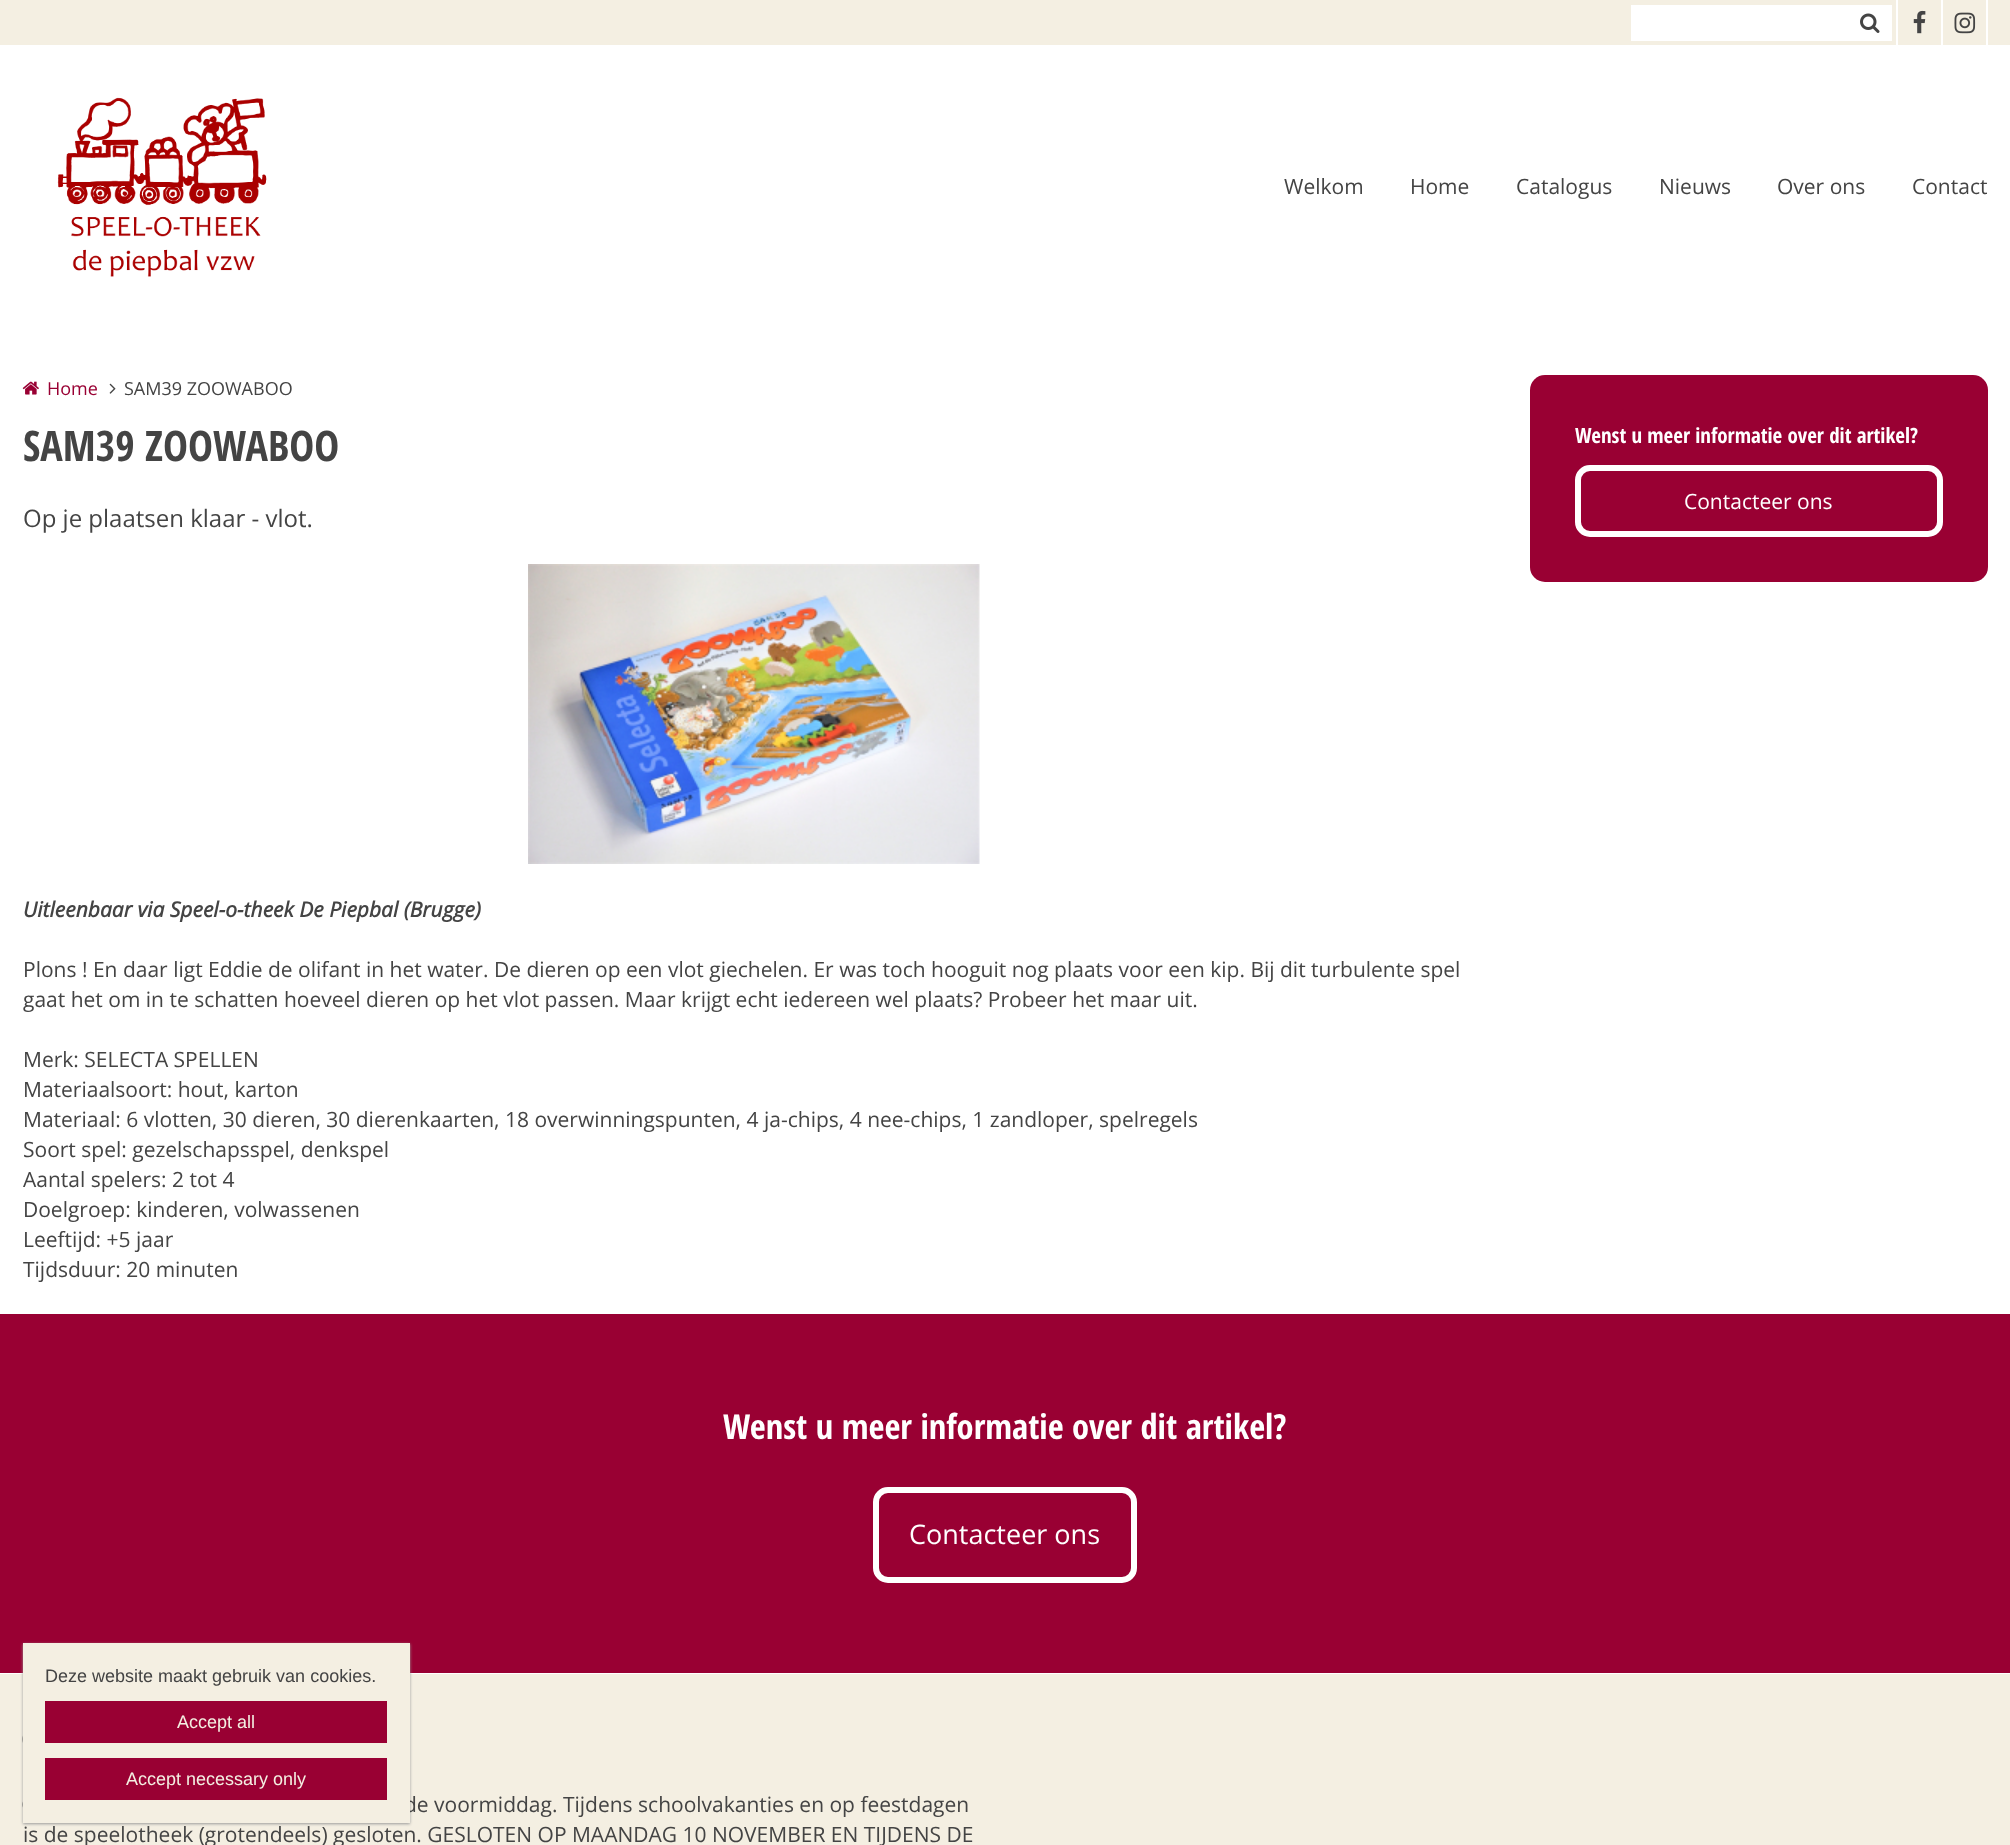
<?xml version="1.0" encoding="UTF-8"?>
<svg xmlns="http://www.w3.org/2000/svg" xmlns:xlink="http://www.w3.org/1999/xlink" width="2010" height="1845">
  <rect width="100%" height="100%" fill="#ffffff" />
  <rect width="2010" height="45" fill="#f4efe2" />
  <rect x="1631" y="5" width="261" height="36" fill="#ffffff" />
  <image x="1860" y="13" width="20" height="20" xlink:href="image1.png" />
  <rect x="1986" width="2" height="45" fill="#ffffff" />
  <rect x="1896" width="2" height="45" fill="#ffffff" />
  <image x="1913" y="10" width="13" height="24" xlink:href="image2.png" />
  <rect x="1941" width="2" height="45" fill="#ffffff" />
  <image x="1954" y="12" width="22" height="22" xlink:href="image3.png" />
  <image x="57" y="97" width="210" height="180" xlink:href="image4.png" />
  <image x="22" y="381" width="17" height="14" xlink:href="image5.png" />
  <image x="109" y="383" width="7" height="11" xlink:href="image6.png" />
  <image x="528" y="564" width="452" height="300" xlink:href="image7.png" />
  <rect x="1530" y="375" width="458" height="207" rx="15" fill="#990033" />
  <rect x="1578" y="468" width="362" height="66" rx="12" fill="none" stroke="#ffffff" stroke-width="6" />
  <rect y="1314" width="2010" height="359" fill="#990033" />
  <rect x="876" y="1490" width="258" height="90" rx="12" fill="none" stroke="#ffffff" stroke-width="6" />
  <rect y="1674" width="2010" height="171" fill="#f4efe2" />
  <image x="22" y="1735" width="1" height="8" xlink:href="image8.png" />
  <image x="22" y="1801" width="1" height="7" xlink:href="image9.png" />
  <rect x="23" y="1644" width="387" height="180" fill="#999999" filter="blur(1.5px)" />
  <text x="1284" y="194" style="font-family: Open Sans; font-size: 21px; fill: #444444">Welkom</text>
  <text x="1410" y="194" style="font-family: Open Sans; font-size: 21px; fill: #444444">Home</text>
  <text x="1516" y="194" style="font-family: Open Sans; font-size: 21px; fill: #444444">Catalogus</text>
  <text x="1659" y="194" style="font-family: Open Sans; font-size: 21px; fill: #444444">Nieuws</text>
  <text x="1777" y="194" style="font-family: Open Sans; font-size: 21px; fill: #444444">Over ons</text>
  <text x="1912" y="194" style="font-family: Open Sans; font-size: 21px; fill: #444444">Contact</text>
  <text x="47" y="395" style="font-family: Open Sans; font-size: 18px; fill: #990033">Home</text>
  <text x="124" y="395" style="font-family: Open Sans; font-size: 18px; fill: #444444">SAM39 ZOOWABOO</text>
  <text x="23" y="461" style="font-family: Open Sans Condensed; font-size: 42px; font-weight: bold; fill: #444444">SAM39 ZOOWABOO</text>
  <text x="23" y="527" style="font-family: Open Sans; font-size: 24px; fill: #444444">Op je plaatsen klaar - vlot.</text>
  <text x="23" y="917" style="font-family: Open Sans; font-size: 21px; font-weight: bold; font-style: italic; fill: #444444">Uitleenbaar via Speel-o-theek De Piepbal (Brugge)</text>
  <text x="23" y="977" style="font-family: Open Sans; font-size: 21px; fill: #444444">Plons ! En daar ligt Eddie de olifant in het water. De dieren op een vlot giechelen. Er was toch hooguit nog plaats voor een kip. Bij dit turbulente spel</text>
  <text x="23" y="1007" style="font-family: Open Sans; font-size: 21px; fill: #444444">gaat het om in te schatten hoeveel dieren op het vlot passen. Maar krijgt echt iedereen wel plaats? Probeer het maar uit.</text>
  <text x="23" y="1067" style="font-family: Open Sans; font-size: 21px; fill: #444444">Merk: SELECTA SPELLEN</text>
  <text x="23" y="1097" style="font-family: Open Sans; font-size: 21px; fill: #444444">Materiaalsoort: hout, karton</text>
  <text x="23" y="1127" style="font-family: Open Sans; font-size: 21px; fill: #444444">Materiaal: 6 vlotten, 30 dieren, 30 dierenkaarten, 18 overwinningspunten, 4 ja-chips, 4 nee-chips, 1 zandloper, spelregels</text>
  <text x="23" y="1157" style="font-family: Open Sans; font-size: 21px; fill: #444444">Soort spel: gezelschapsspel, denkspel</text>
  <text x="23" y="1187" style="font-family: Open Sans; font-size: 21px; fill: #444444">Aantal spelers: 2 tot 4</text>
  <text x="23" y="1217" style="font-family: Open Sans; font-size: 21px; fill: #444444">Doelgroep: kinderen, volwassenen</text>
  <text x="23" y="1247" style="font-family: Open Sans; font-size: 21px; fill: #444444">Leeftijd: +5 jaar</text>
  <text x="23" y="1277" style="font-family: Open Sans; font-size: 21px; fill: #444444">Tijdsduur: 20 minuten</text>
  <text x="1575" y="443" style="font-family: Open Sans Condensed; font-size: 21px; font-weight: bold; fill: #ffffff">Wenst u meer informatie over dit artikel?</text>
  <text x="1684" y="509" style="font-family: Open Sans; font-size: 21px; fill: #ffffff">Contacteer ons</text>
  <text x="723" y="1439" style="font-family: Open Sans Condensed; font-size: 34.5px; font-weight: bold; fill: #ffffff">Wenst u meer informatie over dit artikel?</text>
  <text x="909" y="1544" style="font-family: Open Sans; font-size: 27px; fill: #ffffff">Contacteer ons</text>
  <text x="404" y="1812" style="font-family: Open Sans; font-size: 21px; fill: #444444">de voormiddag. Tijdens schoolvakanties en op feestdagen</text>
  <text x="23" y="1842" style="font-family: Open Sans; font-size: 21px; fill: #444444">is de speelotheek (grotendeels) gesloten. GESLOTEN OP MAANDAG 10 NOVEMBER EN TIJDENS DE</text>
  <rect x="23" y="1643" width="387" height="180" fill="#f4efe2" />
  <text x="45" y="1682" style="font-family: Liberation Sans; font-size: 18px; fill: #444444">Deze website maakt gebruik van cookies.</text>
  <rect x="45" y="1701" width="342" height="42" fill="#990033" />
  <text x="177" y="1728" style="font-family: Liberation Sans; font-size: 18px; fill: #f4efe2">Accept all</text>
  <rect x="45" y="1758" width="342" height="42" fill="#990033" />
  <text x="126" y="1785" style="font-family: Liberation Sans; font-size: 18px; fill: #f4efe2">Accept necessary only</text>
</svg>
